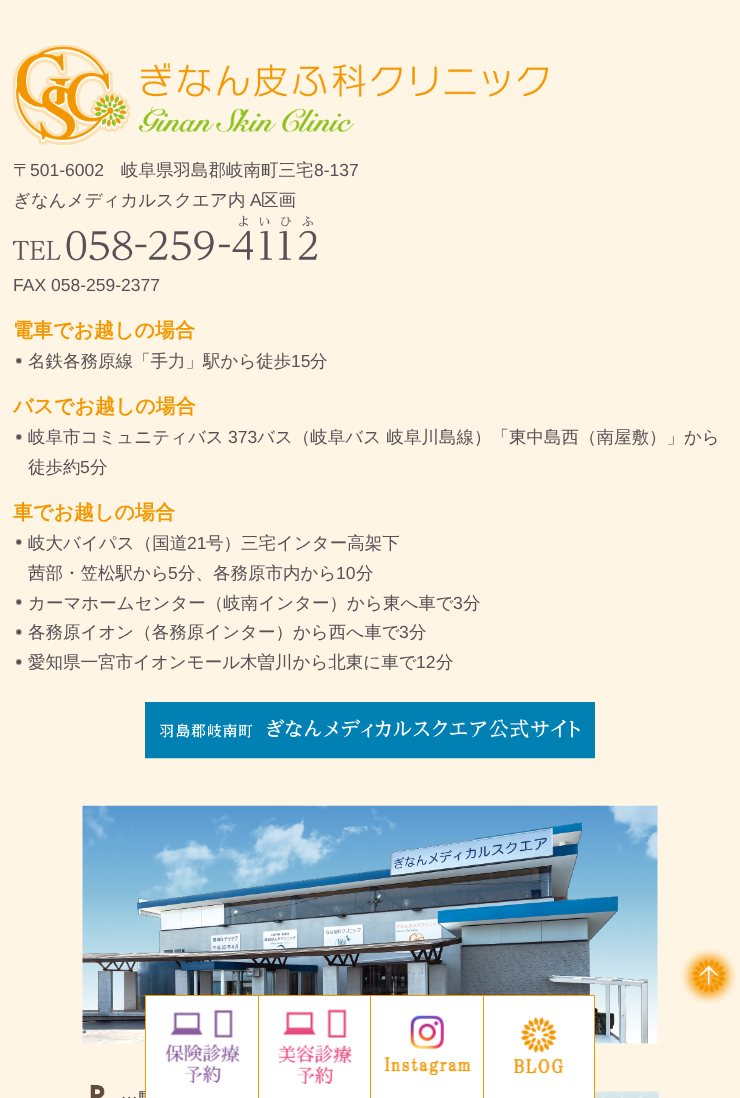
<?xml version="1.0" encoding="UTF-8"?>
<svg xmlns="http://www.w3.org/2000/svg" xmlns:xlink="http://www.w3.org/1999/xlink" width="740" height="1098">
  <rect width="100%" height="100%" fill="#fef5e5" />
  <image x="13" y="45" width="535" height="100" xlink:href="image1.png" />
  <image x="13" y="215" width="305" height="46" xlink:href="image2.png" />
  <image x="16" y="358" width="6" height="6" xlink:href="image3.png" />
  <image x="16" y="434" width="6" height="6" xlink:href="image4.png" />
  <image x="16" y="539" width="6" height="6" xlink:href="image5.png" />
  <image x="16" y="599" width="6" height="6" xlink:href="image4.png" />
  <image x="16" y="629" width="6" height="6" xlink:href="image4.png" />
  <image x="16" y="659" width="6" height="6" xlink:href="image4.png" />
  <image x="145" y="702" width="450" height="57" xlink:href="image6.png" />
  <image x="82" y="805" width="576" height="239" xlink:href="image7.png" />
  <image x="90" y="1084" width="569" height="14" xlink:href="image8.png" />
  <image x="680" y="948" width="57" height="57" xlink:href="image9.png" />
  <rect x="145" y="995" width="450" height="1" fill="#f39800" />
  <rect x="145" y="995" width="1" height="103" fill="#f39800" />
  <rect x="146" y="996" width="112" height="102" fill="#ffffff" />
  <image x="170" y="1009" width="63" height="29" xlink:href="image10.png" />
  <image x="165" y="1044" width="75" height="40" xlink:href="image11.png" />
  <rect x="258" y="995" width="1" height="103" fill="#f39800" />
  <rect x="259" y="996" width="111" height="102" fill="#ffffff" />
  <image x="282" y="1009" width="65" height="29" xlink:href="image12.png" />
  <image x="277" y="1044" width="75" height="41" xlink:href="image13.png" />
  <rect x="370" y="995" width="1" height="103" fill="#f39800" />
  <rect x="371" y="996" width="112" height="102" fill="#ffffff" />
  <image x="410" y="1015" width="34" height="34" xlink:href="image14.png" />
  <image x="384" y="1057" width="87" height="19" xlink:href="image15.png" />
  <rect x="594" y="995" width="1" height="103" fill="#f39800" />
  <rect x="483" y="995" width="1" height="103" fill="#f39800" />
  <rect x="484" y="996" width="110" height="102" fill="#ffffff" />
  <image x="520" y="1016" width="37" height="37" xlink:href="image16.png" />
  <image x="513" y="1058" width="51" height="16" xlink:href="image17.png" />
  <text x="13" y="176" style="font-family: WenQuanYi Zen Hei; font-size: 17.5px; font-weight: 500; fill: #585054">〒</text>
  <text x="30" y="176" style="font-family: Liberation Sans; font-size: 17.5px; fill: #585054">501-6002</text>
  <text x="121" y="176" style="font-family: WenQuanYi Zen Hei; font-size: 17.5px; font-weight: 500; fill: #585054">岐阜県羽島郡岐南町三宅</text>
  <text x="314" y="176" style="font-family: Liberation Sans; font-size: 17.5px; fill: #585054">8-137</text>
  <text x="13" y="206" style="font-family: WenQuanYi Zen Hei; font-size: 17.5px; font-weight: 500; fill: #585054">ぎなんメディカルスクエア内</text>
  <text x="250" y="206" style="font-family: Liberation Sans; font-size: 17.5px; fill: #585054">A</text>
  <text x="261" y="206" style="font-family: WenQuanYi Zen Hei; font-size: 17.5px; font-weight: 500; fill: #585054">区画</text>
  <text x="13" y="291" style="font-family: Liberation Sans; font-size: 17.5px; fill: #585054">FAX 058-259-2377</text>
  <text x="13" y="337" style="font-family: WenQuanYi Zen Hei; font-size: 20px; font-weight: bold; fill: #f39800">電車でお越しの場合</text>
  <text x="28" y="367" style="font-family: WenQuanYi Zen Hei; font-size: 17.5px; font-weight: 500; fill: #585054">名鉄各務原線「手力」駅から徒歩</text>
  <text x="291" y="367" style="font-family: Liberation Sans; font-size: 17.5px; fill: #585054">15</text>
  <text x="310" y="367" style="font-family: WenQuanYi Zen Hei; font-size: 17.5px; font-weight: 500; fill: #585054">分</text>
  <text x="13" y="413" style="font-family: WenQuanYi Zen Hei; font-size: 20px; font-weight: bold; fill: #f39800">バスでお越しの場合</text>
  <text x="28" y="443" style="font-family: WenQuanYi Zen Hei; font-size: 17.5px; font-weight: 500; fill: #585054">岐阜市コミュニティバス</text>
  <text x="228" y="443" style="font-family: Liberation Sans; font-size: 17.5px; fill: #585054">373</text>
  <text x="257" y="443" style="font-family: WenQuanYi Zen Hei; font-size: 17.5px; font-weight: 500; fill: #585054">バス（岐阜バス 岐阜川島線）「東中島西（南屋敷）」から</text>
  <text x="28" y="473" style="font-family: WenQuanYi Zen Hei; font-size: 17.5px; font-weight: 500; fill: #585054">徒歩約</text>
  <text x="80" y="473" style="font-family: Liberation Sans; font-size: 17.5px; fill: #585054">5</text>
  <text x="90" y="473" style="font-family: WenQuanYi Zen Hei; font-size: 17.5px; font-weight: 500; fill: #585054">分</text>
  <text x="13" y="519" style="font-family: WenQuanYi Zen Hei; font-size: 20px; font-weight: bold; fill: #f39800">車でお越しの場合</text>
  <text x="28" y="549" style="font-family: WenQuanYi Zen Hei; font-size: 17.5px; font-weight: 500; fill: #585054">岐大バイパス（国道</text>
  <text x="187" y="549" style="font-family: Liberation Sans; font-size: 17.5px; fill: #585054">21</text>
  <text x="206" y="549" style="font-family: WenQuanYi Zen Hei; font-size: 17.5px; font-weight: 500; fill: #585054">号）三宅インター高架下</text>
  <text x="28" y="579" style="font-family: WenQuanYi Zen Hei; font-size: 17.5px; font-weight: 500; fill: #585054">茜部・笠松駅から</text>
  <text x="168" y="579" style="font-family: Liberation Sans; font-size: 17.5px; fill: #585054">5</text>
  <text x="178" y="579" style="font-family: WenQuanYi Zen Hei; font-size: 17.5px; font-weight: 500; fill: #585054">分、各務原市内から</text>
  <text x="336" y="579" style="font-family: Liberation Sans; font-size: 17.5px; fill: #585054">10</text>
  <text x="356" y="579" style="font-family: WenQuanYi Zen Hei; font-size: 17.5px; font-weight: 500; fill: #585054">分</text>
  <text x="28" y="609" style="font-family: WenQuanYi Zen Hei; font-size: 17.5px; font-weight: 500; fill: #585054">カーマホームセンター（岐南インター）から東へ車で</text>
  <text x="453" y="609" style="font-family: Liberation Sans; font-size: 17.5px; fill: #585054">3</text>
  <text x="463" y="609" style="font-family: WenQuanYi Zen Hei; font-size: 17.5px; font-weight: 500; fill: #585054">分</text>
  <text x="28" y="638" style="font-family: WenQuanYi Zen Hei; font-size: 17.5px; font-weight: 500; fill: #585054">各務原イオン（各務原インター）から西へ車で</text>
  <text x="399" y="638" style="font-family: Liberation Sans; font-size: 17.5px; fill: #585054">3</text>
  <text x="409" y="638" style="font-family: WenQuanYi Zen Hei; font-size: 17.5px; font-weight: 500; fill: #585054">分</text>
  <text x="28" y="668" style="font-family: WenQuanYi Zen Hei; font-size: 17.5px; font-weight: 500; fill: #585054">愛知県一宮市イオンモール木曽川から北東に車で</text>
  <text x="416" y="668" style="font-family: Liberation Sans; font-size: 17.5px; fill: #585054">12</text>
  <text x="436" y="668" style="font-family: WenQuanYi Zen Hei; font-size: 17.5px; font-weight: 500; fill: #585054">分</text>
</svg>
